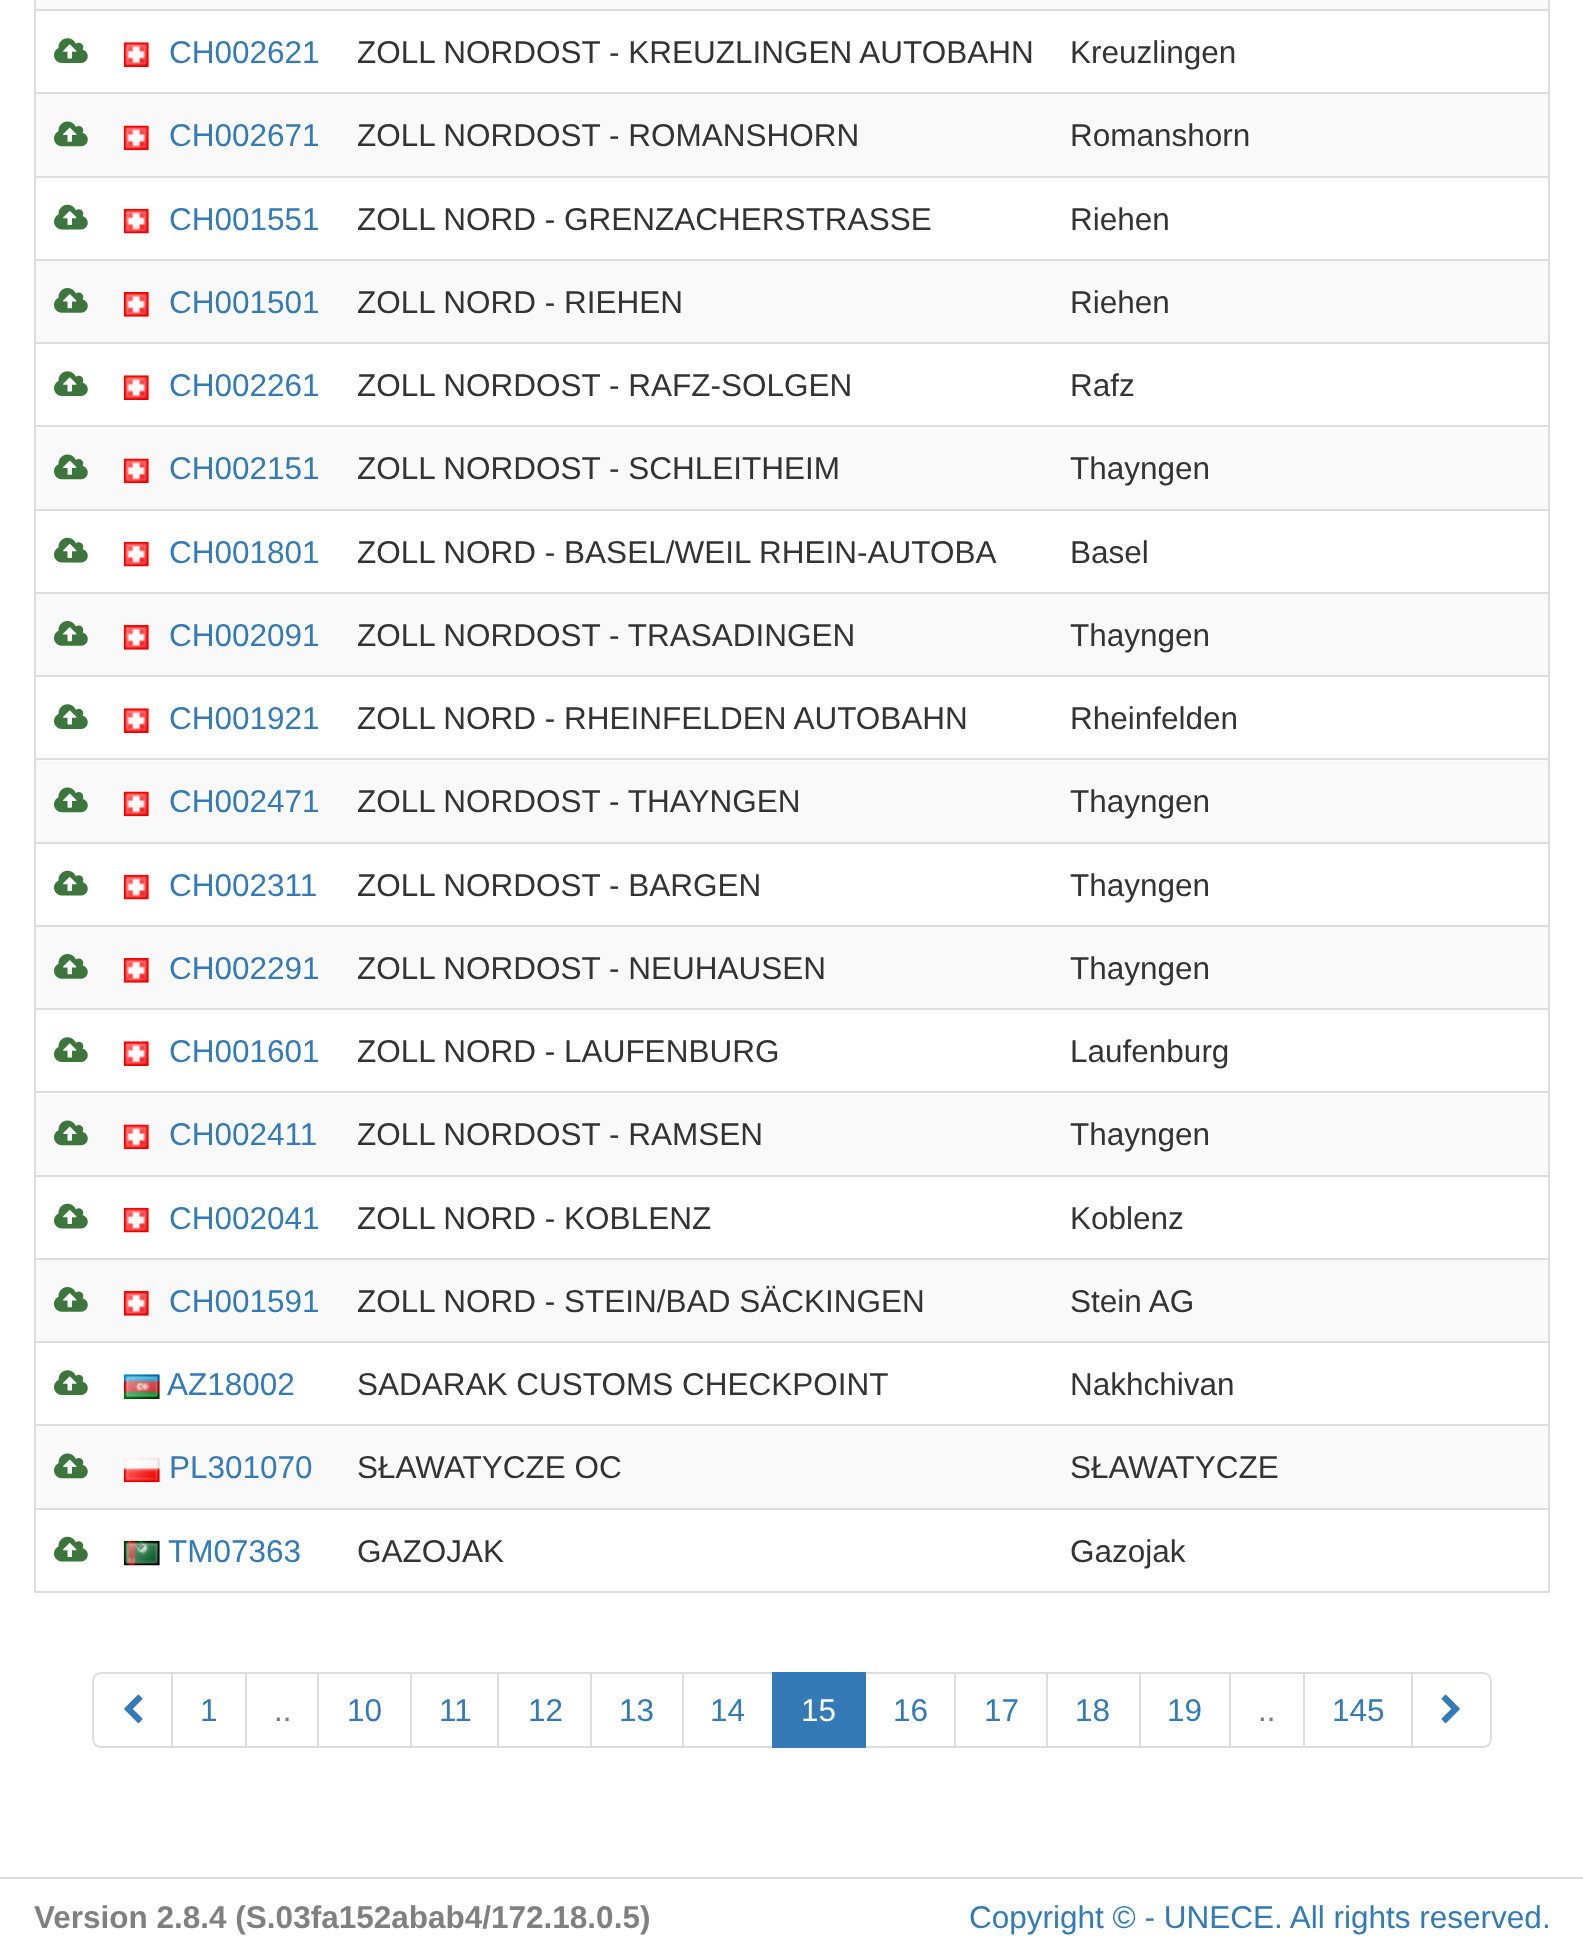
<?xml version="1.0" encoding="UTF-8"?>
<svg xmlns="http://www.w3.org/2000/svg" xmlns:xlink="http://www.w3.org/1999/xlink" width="1583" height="1960">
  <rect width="100%" height="100%" fill="#ffffff" />
  <rect x="35" y="-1" width="1514" height="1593" fill="none" stroke="#dddddd" stroke-width="2" />
  <rect x="36" width="1512" height="9" fill="#f9f9f9" />
  <rect x="36" y="9" width="1512" height="2" fill="#dddddd" />
  <image x="54" y="38" width="34" height="25" xlink:href="image1.png" />
  <image x="123" y="42" width="27" height="25" xlink:href="image2.png" />
  <rect x="36" y="95" width="1512" height="81" fill="#f9f9f9" />
  <rect x="36" y="92" width="1512" height="2" fill="#dddddd" />
  <image x="54" y="121" width="34" height="26" xlink:href="image3.png" />
  <image x="123" y="125" width="27" height="26" xlink:href="image4.png" />
  <rect x="36" y="176" width="1512" height="2" fill="#dddddd" />
  <image x="54" y="204" width="34" height="26" xlink:href="image5.png" />
  <image x="123" y="208" width="27" height="26" xlink:href="image6.png" />
  <rect x="36" y="261" width="1512" height="81" fill="#f9f9f9" />
  <rect x="36" y="259" width="1512" height="2" fill="#dddddd" />
  <image x="54" y="288" width="34" height="25" xlink:href="image7.png" />
  <image x="123" y="292" width="27" height="25" xlink:href="image8.png" />
  <rect x="36" y="342" width="1512" height="2" fill="#dddddd" />
  <image x="54" y="371" width="34" height="25" xlink:href="image1.png" />
  <image x="123" y="375" width="27" height="25" xlink:href="image2.png" />
  <rect x="36" y="428" width="1512" height="81" fill="#f9f9f9" />
  <rect x="36" y="425" width="1512" height="2" fill="#dddddd" />
  <image x="54" y="454" width="34" height="26" xlink:href="image3.png" />
  <image x="123" y="458" width="27" height="26" xlink:href="image4.png" />
  <rect x="36" y="509" width="1512" height="2" fill="#dddddd" />
  <image x="54" y="537" width="34" height="26" xlink:href="image5.png" />
  <image x="123" y="541" width="27" height="26" xlink:href="image6.png" />
  <rect x="36" y="594" width="1512" height="81" fill="#f9f9f9" />
  <rect x="36" y="592" width="1512" height="2" fill="#dddddd" />
  <image x="54" y="621" width="34" height="25" xlink:href="image7.png" />
  <image x="123" y="625" width="27" height="25" xlink:href="image9.png" />
  <rect x="36" y="675" width="1512" height="2" fill="#dddddd" />
  <image x="54" y="704" width="34" height="25" xlink:href="image1.png" />
  <image x="123" y="708" width="27" height="25" xlink:href="image2.png" />
  <rect x="36" y="761" width="1512" height="81" fill="#f9f9f9" />
  <rect x="36" y="758" width="1512" height="2" fill="#dddddd" />
  <image x="54" y="787" width="34" height="26" xlink:href="image3.png" />
  <image x="123" y="791" width="27" height="26" xlink:href="image10.png" />
  <rect x="36" y="842" width="1512" height="2" fill="#dddddd" />
  <image x="54" y="870" width="34" height="26" xlink:href="image5.png" />
  <image x="123" y="874" width="27" height="26" xlink:href="image6.png" />
  <rect x="36" y="927" width="1512" height="81" fill="#f9f9f9" />
  <rect x="36" y="925" width="1512" height="2" fill="#dddddd" />
  <image x="54" y="954" width="34" height="25" xlink:href="image7.png" />
  <image x="123" y="958" width="27" height="25" xlink:href="image9.png" />
  <rect x="36" y="1008" width="1512" height="2" fill="#dddddd" />
  <image x="54" y="1037" width="34" height="25" xlink:href="image1.png" />
  <image x="123" y="1041" width="27" height="25" xlink:href="image11.png" />
  <rect x="36" y="1094" width="1512" height="81" fill="#f9f9f9" />
  <rect x="36" y="1091" width="1512" height="2" fill="#dddddd" />
  <image x="54" y="1120" width="34" height="26" xlink:href="image3.png" />
  <image x="123" y="1124" width="27" height="26" xlink:href="image4.png" />
  <rect x="36" y="1175" width="1512" height="2" fill="#dddddd" />
  <image x="54" y="1203" width="34" height="26" xlink:href="image5.png" />
  <image x="123" y="1207" width="27" height="26" xlink:href="image6.png" />
  <rect x="36" y="1260" width="1512" height="81" fill="#f9f9f9" />
  <rect x="36" y="1258" width="1512" height="2" fill="#dddddd" />
  <image x="54" y="1287" width="34" height="25" xlink:href="image7.png" />
  <image x="123" y="1291" width="27" height="25" xlink:href="image9.png" />
  <rect x="36" y="1341" width="1512" height="2" fill="#dddddd" />
  <image x="54" y="1370" width="34" height="25" xlink:href="image1.png" />
  <image x="123" y="1374" width="37" height="25" xlink:href="image12.png" />
  <rect x="36" y="1427" width="1512" height="81" fill="#f9f9f9" />
  <rect x="36" y="1424" width="1512" height="2" fill="#dddddd" />
  <image x="54" y="1453" width="34" height="26" xlink:href="image3.png" />
  <image x="123" y="1457" width="37" height="26" xlink:href="image13.png" />
  <rect x="36" y="1508" width="1512" height="2" fill="#dddddd" />
  <image x="54" y="1536" width="34" height="26" xlink:href="image5.png" />
  <image x="123" y="1540" width="37" height="26" xlink:href="image14.png" />
  <path d="M 101 1673 h 71 v 74 h -71 c -4.5 0 -8 -3.5 -8 -8 v -58 c 0 -4.5 3.5 -8 8 -8 z" fill="none" stroke="#dddddd" stroke-width="2" />
  <image x="124" y="1694" width="19" height="29" xlink:href="image15.png" />
  <rect x="172" y="1673" width="75" height="74" fill="none" stroke="#dddddd" stroke-width="2" />
  <rect x="247" y="1674" width="1" height="72" fill="#ffffff" />
  <rect x="246" y="1673" width="73" height="74" fill="none" stroke="#dddddd" stroke-width="2" />
  <rect x="319" y="1674" width="1" height="72" fill="#ffffff" />
  <rect x="318" y="1673" width="93" height="74" fill="none" stroke="#dddddd" stroke-width="2" />
  <rect x="411" y="1673" width="88" height="74" fill="none" stroke="#dddddd" stroke-width="2" />
  <rect x="499" y="1674" width="1" height="72" fill="#ffffff" />
  <rect x="498" y="1673" width="93" height="74" fill="none" stroke="#dddddd" stroke-width="2" />
  <rect x="591" y="1673" width="92" height="74" fill="none" stroke="#dddddd" stroke-width="2" />
  <rect x="683" y="1673" width="90" height="74" fill="none" stroke="#dddddd" stroke-width="2" />
  <rect x="865" y="1673" width="90" height="74" fill="none" stroke="#dddddd" stroke-width="2" />
  <rect x="772" y="1672" width="94" height="76" fill="#337ab7" />
  <rect x="955" y="1673" width="93" height="74" fill="none" stroke="#dddddd" stroke-width="2" />
  <rect x="1048" y="1674" width="1" height="72" fill="#ffffff" />
  <rect x="1047" y="1673" width="93" height="74" fill="none" stroke="#dddddd" stroke-width="2" />
  <rect x="1140" y="1673" width="90" height="74" fill="none" stroke="#dddddd" stroke-width="2" />
  <rect x="1230" y="1673" width="74" height="74" fill="none" stroke="#dddddd" stroke-width="2" />
  <rect x="1304" y="1673" width="108" height="74" fill="none" stroke="#dddddd" stroke-width="2" />
  <path d="M 1412 1673 h 71 c 4.5 0 8 3.5 8 8 v 58 c 0 4.5 -3.5 8 -8 8 h -71 z" fill="#ffffff" stroke="#dddddd" stroke-width="2" />
  <image x="1441" y="1694" width="19" height="29" xlink:href="image16.png" />
  <rect y="1877" width="1583" height="2" fill="#dcdcdc" />
  <text x="169" y="63" style="font-family: Liberation Sans; font-size: 31.5px; fill: #337ab7">CH002621</text>
  <text x="357" y="63" style="font-family: Liberation Sans; font-size: 31.5px; fill: #333333">ZOLL NORDOST - KREUZLINGEN AUTOBAHN</text>
  <text x="1070" y="63" style="font-family: Liberation Sans; font-size: 31.5px; fill: #333333">Kreuzlingen</text>
  <text x="169" y="146" style="font-family: Liberation Sans; font-size: 31.5px; fill: #337ab7">CH002671</text>
  <text x="357" y="146" style="font-family: Liberation Sans; font-size: 31.5px; fill: #333333">ZOLL NORDOST - ROMANSHORN</text>
  <text x="1070" y="146" style="font-family: Liberation Sans; font-size: 31.5px; fill: #333333">Romanshorn</text>
  <text x="169" y="230" style="font-family: Liberation Sans; font-size: 31.5px; fill: #337ab7">CH001551</text>
  <text x="357" y="230" style="font-family: Liberation Sans; font-size: 31.5px; fill: #333333">ZOLL NORD - GRENZACHERSTRASSE</text>
  <text x="1070" y="230" style="font-family: Liberation Sans; font-size: 31.5px; fill: #333333">Riehen</text>
  <text x="169" y="313" style="font-family: Liberation Sans; font-size: 31.5px; fill: #337ab7">CH001501</text>
  <text x="357" y="313" style="font-family: Liberation Sans; font-size: 31.5px; fill: #333333">ZOLL NORD - RIEHEN</text>
  <text x="1070" y="313" style="font-family: Liberation Sans; font-size: 31.5px; fill: #333333">Riehen</text>
  <text x="169" y="396" style="font-family: Liberation Sans; font-size: 31.5px; fill: #337ab7">CH002261</text>
  <text x="357" y="396" style="font-family: Liberation Sans; font-size: 31.5px; fill: #333333">ZOLL NORDOST - RAFZ-SOLGEN</text>
  <text x="1070" y="396" style="font-family: Liberation Sans; font-size: 31.5px; fill: #333333">Rafz</text>
  <text x="169" y="479" style="font-family: Liberation Sans; font-size: 31.5px; fill: #337ab7">CH002151</text>
  <text x="357" y="479" style="font-family: Liberation Sans; font-size: 31.5px; fill: #333333">ZOLL NORDOST - SCHLEITHEIM</text>
  <text x="1070" y="479" style="font-family: Liberation Sans; font-size: 31.5px; fill: #333333">Thayngen</text>
  <text x="169" y="563" style="font-family: Liberation Sans; font-size: 31.5px; fill: #337ab7">CH001801</text>
  <text x="357" y="563" style="font-family: Liberation Sans; font-size: 31.5px; fill: #333333">ZOLL NORD - BASEL/WEIL RHEIN-AUTOBA</text>
  <text x="1070" y="563" style="font-family: Liberation Sans; font-size: 31.5px; fill: #333333">Basel</text>
  <text x="169" y="646" style="font-family: Liberation Sans; font-size: 31.5px; fill: #337ab7">CH002091</text>
  <text x="357" y="646" style="font-family: Liberation Sans; font-size: 31.5px; fill: #333333">ZOLL NORDOST - TRASADINGEN</text>
  <text x="1070" y="646" style="font-family: Liberation Sans; font-size: 31.5px; fill: #333333">Thayngen</text>
  <text x="169" y="729" style="font-family: Liberation Sans; font-size: 31.5px; fill: #337ab7">CH001921</text>
  <text x="357" y="729" style="font-family: Liberation Sans; font-size: 31.5px; fill: #333333">ZOLL NORD - RHEINFELDEN AUTOBAHN</text>
  <text x="1070" y="729" style="font-family: Liberation Sans; font-size: 31.5px; fill: #333333">Rheinfelden</text>
  <text x="169" y="812" style="font-family: Liberation Sans; font-size: 31.5px; fill: #337ab7">CH002471</text>
  <text x="357" y="812" style="font-family: Liberation Sans; font-size: 31.5px; fill: #333333">ZOLL NORDOST - THAYNGEN</text>
  <text x="1070" y="812" style="font-family: Liberation Sans; font-size: 31.5px; fill: #333333">Thayngen</text>
  <text x="169" y="896" style="font-family: Liberation Sans; font-size: 31.5px; fill: #337ab7">CH002311</text>
  <text x="357" y="896" style="font-family: Liberation Sans; font-size: 31.5px; fill: #333333">ZOLL NORDOST - BARGEN</text>
  <text x="1070" y="896" style="font-family: Liberation Sans; font-size: 31.5px; fill: #333333">Thayngen</text>
  <text x="169" y="979" style="font-family: Liberation Sans; font-size: 31.5px; fill: #337ab7">CH002291</text>
  <text x="357" y="979" style="font-family: Liberation Sans; font-size: 31.5px; fill: #333333">ZOLL NORDOST - NEUHAUSEN</text>
  <text x="1070" y="979" style="font-family: Liberation Sans; font-size: 31.5px; fill: #333333">Thayngen</text>
  <text x="169" y="1062" style="font-family: Liberation Sans; font-size: 31.5px; fill: #337ab7">CH001601</text>
  <text x="357" y="1062" style="font-family: Liberation Sans; font-size: 31.5px; fill: #333333">ZOLL NORD - LAUFENBURG</text>
  <text x="1070" y="1062" style="font-family: Liberation Sans; font-size: 31.5px; fill: #333333">Laufenburg</text>
  <text x="169" y="1145" style="font-family: Liberation Sans; font-size: 31.5px; fill: #337ab7">CH002411</text>
  <text x="357" y="1145" style="font-family: Liberation Sans; font-size: 31.5px; fill: #333333">ZOLL NORDOST - RAMSEN</text>
  <text x="1070" y="1145" style="font-family: Liberation Sans; font-size: 31.5px; fill: #333333">Thayngen</text>
  <text x="169" y="1229" style="font-family: Liberation Sans; font-size: 31.5px; fill: #337ab7">CH002041</text>
  <text x="357" y="1229" style="font-family: Liberation Sans; font-size: 31.5px; fill: #333333">ZOLL NORD - KOBLENZ</text>
  <text x="1070" y="1229" style="font-family: Liberation Sans; font-size: 31.5px; fill: #333333">Koblenz</text>
  <text x="169" y="1312" style="font-family: Liberation Sans; font-size: 31.5px; fill: #337ab7">CH001591</text>
  <text x="357" y="1312" style="font-family: Liberation Sans; font-size: 31.5px; fill: #333333">ZOLL NORD - STEIN/BAD SÄCKINGEN</text>
  <text x="1070" y="1312" style="font-family: Liberation Sans; font-size: 31.5px; fill: #333333">Stein AG</text>
  <text x="167" y="1395" style="font-family: Liberation Sans; font-size: 31.5px; fill: #337ab7">AZ18002</text>
  <text x="357" y="1395" style="font-family: Liberation Sans; font-size: 31.5px; fill: #333333">SADARAK CUSTOMS CHECKPOINT</text>
  <text x="1070" y="1395" style="font-family: Liberation Sans; font-size: 31.5px; fill: #333333">Nakhchivan</text>
  <text x="169" y="1478" style="font-family: Liberation Sans; font-size: 31.5px; fill: #337ab7">PL301070</text>
  <text x="357" y="1478" style="font-family: Liberation Sans; font-size: 31.5px; fill: #333333">SŁAWATYCZE OC</text>
  <text x="1070" y="1478" style="font-family: Liberation Sans; font-size: 31.5px; fill: #333333">SŁAWATYCZE</text>
  <text x="168" y="1562" style="font-family: Liberation Sans; font-size: 31.5px; fill: #337ab7">TM07363</text>
  <text x="357" y="1562" style="font-family: Liberation Sans; font-size: 31.5px; fill: #333333">GAZOJAK</text>
  <text x="1070" y="1562" style="font-family: Liberation Sans; font-size: 31.5px; fill: #333333">Gazojak</text>
  <text x="200" y="1721" style="font-family: Liberation Sans; font-size: 31.5px; fill: #337ab7">1</text>
  <text x="274" y="1721" style="font-family: Liberation Sans; font-size: 31.5px; fill: #777777">..</text>
  <text x="347" y="1721" style="font-family: Liberation Sans; font-size: 31.5px; fill: #337ab7">10</text>
  <text x="439" y="1721" style="font-family: Liberation Sans; font-size: 31.5px; fill: #337ab7">11</text>
  <text x="528" y="1721" style="font-family: Liberation Sans; font-size: 31.5px; fill: #337ab7">12</text>
  <text x="619" y="1721" style="font-family: Liberation Sans; font-size: 31.5px; fill: #337ab7">13</text>
  <text x="710" y="1721" style="font-family: Liberation Sans; font-size: 31.5px; fill: #337ab7">14</text>
  <text x="801" y="1721" style="font-family: Liberation Sans; font-size: 31.5px; fill: #ffffff">15</text>
  <text x="893" y="1721" style="font-family: Liberation Sans; font-size: 31.5px; fill: #337ab7">16</text>
  <text x="984" y="1721" style="font-family: Liberation Sans; font-size: 31.5px; fill: #337ab7">17</text>
  <text x="1075" y="1721" style="font-family: Liberation Sans; font-size: 31.5px; fill: #337ab7">18</text>
  <text x="1167" y="1721" style="font-family: Liberation Sans; font-size: 31.5px; fill: #337ab7">19</text>
  <text x="1258" y="1721" style="font-family: Liberation Sans; font-size: 31.5px; fill: #777777">..</text>
  <text x="1332" y="1721" style="font-family: Liberation Sans; font-size: 31.5px; fill: #337ab7">145</text>
  <text x="34" y="1928" style="font-family: Liberation Sans; font-size: 31.5px; font-weight: bold; fill: #808080">Version 2.8.4 (S.03fa152abab4/172.18.0.5)</text>
  <text x="969" y="1928" style="font-family: Liberation Sans; font-size: 31.5px; fill: #337ab7">Copyright © - UNECE. All rights reserved.</text>
</svg>
